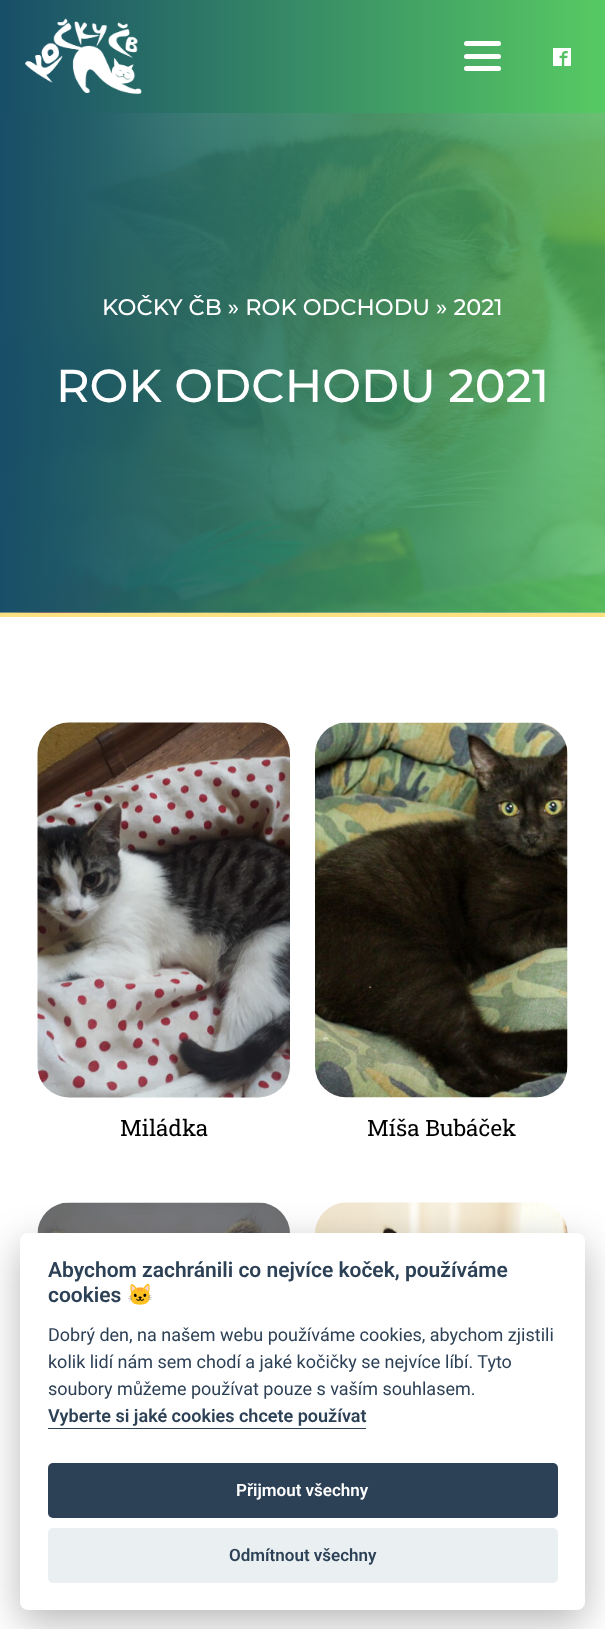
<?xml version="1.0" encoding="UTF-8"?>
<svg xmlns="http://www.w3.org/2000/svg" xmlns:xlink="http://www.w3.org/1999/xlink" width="605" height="1629">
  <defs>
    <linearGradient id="g1" gradientUnits="userSpaceOnUse" x1="0" y1="56" x2="605" y2="56"><stop offset="0" stop-color="#184e68" /><stop offset="1" stop-color="#57ca63" /></linearGradient>
  </defs>
  <rect width="100%" height="100%" fill="#ffffff" />
  <rect width="605" height="113" fill="url(#g1)" />
  <image x="25" y="18" width="117" height="76" xlink:href="image1.png" />
  <rect x="464" y="41" width="37" height="5" rx="2.5" fill="#ffffff" />
  <rect x="464" y="54" width="37" height="5" rx="2.5" fill="#ffffff" />
  <rect x="464" y="66" width="37" height="5" rx="2.5" fill="#ffffff" />
  <image x="553" y="48" width="18" height="18" xlink:href="image2.png" />
  <image x="0" y="113" width="605" height="500" xlink:href="image3.png" />
  <rect y="613" width="605" height="4" fill="#fce181" />
  <image x="37" y="722" width="253" height="376" xlink:href="image4.png" />
  <image x="315" y="722" width="253" height="376" xlink:href="image5.png" />
  <image x="37" y="1202" width="253" height="31" xlink:href="image6.png" />
  <image x="315" y="1202" width="253" height="31" xlink:href="image7.png" />
  <rect x="20" y="1245" width="565" height="378" rx="8" fill="#020203" fill-opacity="0.28" filter="blur(19px)" />
  <rect x="20" y="1233" width="565" height="377" rx="8" fill="#ffffff" />
  <rect x="48" y="1428" width="318" height="1" fill="#2d4156" />
  <rect x="48" y="1463" width="510" height="55" rx="5" fill="#2d4156" />
  <rect x="48" y="1528" width="510" height="55" rx="5" fill="#eaeff2" />
  <text x="102" y="315" style="font-family: Montserrat; font-size: 22.5px; font-weight: 500; fill: #ffffff">KOČKY ČB » ROK ODCHODU » 2021</text>
  <text x="56" y="402" style="font-family: Montserrat; font-size: 46.25px; font-weight: 500; fill: #ffffff">ROK ODCHODU 2021</text>
  <text x="120" y="1136" style="font-family: Roboto Slab; font-size: 22.5px; fill: #000000">Miládka</text>
  <text x="367" y="1136" style="font-family: Roboto Slab; font-size: 22.5px; fill: #000000">Míša Bubáček</text>
  <text x="48" y="1277" style="font-family: Roboto; font-size: 21px; font-weight: 600; fill: #2d4156">Abychom zachránili co nejvíce koček, používáme</text>
  <text x="48" y="1302" style="font-family: Roboto; font-size: 21px; font-weight: 600; fill: #2d4156">cookies</text>
  <text x="127" y="1302" style="font-family: Noto Color Emoji; font-size: 21px; font-weight: bold; fill: #2d4156">🐱</text>
  <text x="48" y="1341" style="font-family: Roboto; font-size: 18px; fill: #2d4156">Dobrý den, na našem webu používáme cookies, abychom zjistili</text>
  <text x="48" y="1368" style="font-family: Roboto; font-size: 18px; fill: #2d4156">kolik lidí nám sem chodí a jaké kočičky se nejvíce líbí. Tyto</text>
  <text x="48" y="1395" style="font-family: Roboto; font-size: 18px; fill: #2d4156">soubory můžeme používat pouze s vaším souhlasem.</text>
  <text x="48" y="1422" style="font-family: Roboto; font-size: 18px; font-weight: 600; fill: #2d4156">Vyberte si jaké cookies chcete používat</text>
  <text x="236" y="1496" style="font-family: Roboto; font-size: 17px; font-weight: 600; fill: #ffffff">Přijmout všechny</text>
  <text x="229" y="1561" style="font-family: Roboto; font-size: 17px; font-weight: 600; fill: #2d4156">Odmítnout všechny</text>
</svg>
